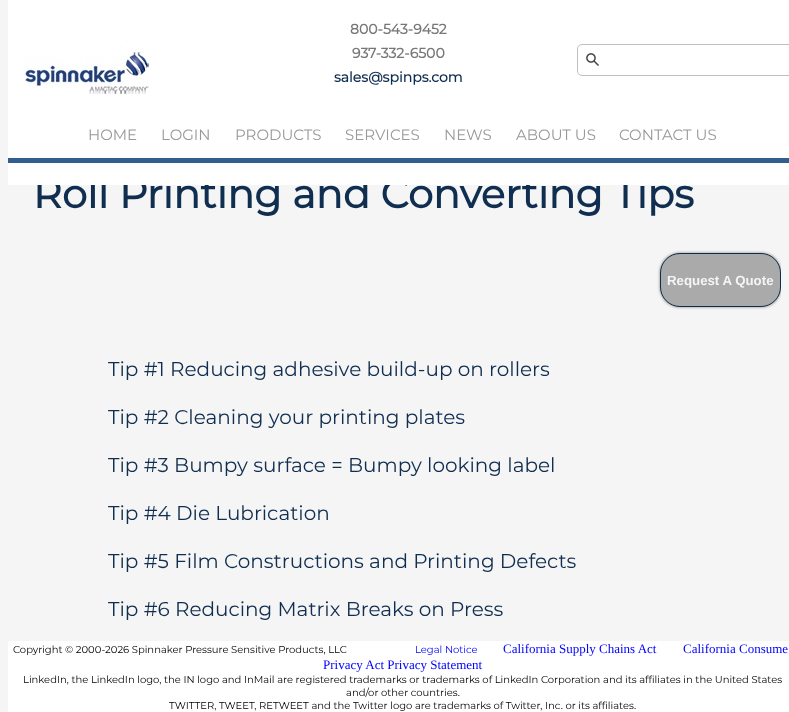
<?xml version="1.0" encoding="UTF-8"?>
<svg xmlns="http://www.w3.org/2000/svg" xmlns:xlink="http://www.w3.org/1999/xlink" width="789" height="712">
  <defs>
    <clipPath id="clip1"><rect x="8" y="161" width="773" height="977" /></clipPath>
  </defs>
  <rect width="100%" height="100%" fill="#f5f5f5" />
  <g clip-path="url(#clip1)">
    <rect x="660" y="253" width="121" height="54" rx="20" fill="#808080" filter="blur(1.5px)" />
  </g>
  <rect x="660.5" y="253.5" width="120" height="53" rx="19.5" fill="#aaaaaa" stroke="#102e50" />
  <rect x="8" y="641" width="781" height="71" fill="#ffffff" />
  <text x="33" y="208" style="font-family: Montserrat; font-size: 40px; font-weight: bold; fill: #102e50">Roll Printing and Converting Tips</text>
  <rect x="8" width="781" height="185" fill="#ffffff" />
  <rect x="8" y="158" width="781" height="5" fill="#315d8f" />
  <text x="619" y="140" style="font-family: Montserrat; font-size: 15px; font-weight: 100; fill: #999999">CONTACT US</text>
  <text x="516" y="140" style="font-family: Montserrat; font-size: 15px; font-weight: 100; fill: #999999">ABOUT US</text>
  <text x="444" y="140" style="font-family: Montserrat; font-size: 15px; font-weight: 100; fill: #999999">NEWS</text>
  <text x="345" y="140" style="font-family: Montserrat; font-size: 15px; font-weight: 100; fill: #999999">SERVICES</text>
  <text x="235" y="140" style="font-family: Montserrat; font-size: 15px; font-weight: 100; fill: #999999">PRODUCTS</text>
  <text x="161" y="140" style="font-family: Montserrat; font-size: 15px; font-weight: 100; fill: #999999">LOGIN</text>
  <text x="88" y="140" style="font-family: Montserrat; font-size: 15px; font-weight: 100; fill: #999999">HOME</text>
  <image x="586" y="53" width="13" height="13" xlink:href="image2.png" />
  <rect x="577.5" y="44.5" width="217" height="31" rx="4.5" fill="none" stroke="#bfbfbf" />
  <text x="334" y="82" style="font-family: Montserrat; font-size: 14px; font-weight: bold; fill: #102e50">sales@spinps.com</text>
  <text x="352" y="58" style="font-family: Montserrat; font-size: 14px; font-weight: bold; fill: #777777">937-332-6500</text>
  <text x="350" y="34" style="font-family: Montserrat; font-size: 14px; font-weight: bold; fill: #777777">800-543-9452</text>
  <image x="24" y="40" width="125" height="54" xlink:href="image1.png" />
  <text x="667" y="285" style="font-family: Liberation Sans; font-size: 13.25px; font-weight: bold; fill: #f5f5f5">Request A Quote</text>
  <text x="108" y="376" style="font-family: Montserrat; font-size: 20px; font-weight: 100; fill: #102e50">Tip #1 Reducing adhesive build-up on rollers</text>
  <text x="108" y="424" style="font-family: Montserrat; font-size: 20px; font-weight: 100; fill: #102e50">Tip #2 Cleaning your printing plates</text>
  <text x="108" y="472" style="font-family: Montserrat; font-size: 20px; font-weight: 100; fill: #102e50">Tip #3 Bumpy surface = Bumpy looking label</text>
  <text x="108" y="520" style="font-family: Montserrat; font-size: 20px; font-weight: 100; fill: #102e50">Tip #4 Die Lubrication</text>
  <text x="108" y="568" style="font-family: Montserrat; font-size: 20px; font-weight: 100; fill: #102e50">Tip #5 Film Constructions and Printing Defects</text>
  <text x="108" y="616" style="font-family: Montserrat; font-size: 20px; font-weight: 100; fill: #102e50">Tip #6 Reducing Matrix Breaks on Press</text>
  <text x="13" y="653" style="font-family: Montserrat; font-size: 10px; font-weight: 100; fill: #000000">Copyright © 2000-2026 Spinnaker Pressure Sensitive Products, LLC</text>
  <text x="415" y="653" style="font-family: Montserrat; font-size: 10px; font-weight: 100; fill: #0000ff">Legal Notice</text>
  <text x="503" y="653" style="font-family: Liberation Serif; font-size: 13px; fill: #0000ff">California Supply Chains Act</text>
  <text x="683" y="653" style="font-family: Liberation Serif; font-size: 13px; fill: #0000ff">California Consume</text>
  <text x="323" y="669" style="font-family: Liberation Serif; font-size: 13px; fill: #0000ff">Privacy Act Privacy Statement</text>
  <text x="23" y="683" style="font-family: Montserrat; font-size: 10px; font-weight: 100; fill: #000000">LinkedIn, the LinkedIn logo, the IN logo and InMail are registered trademarks or trademarks of LinkedIn Corporation and its affiliates in the United States</text>
  <text x="346" y="696" style="font-family: Montserrat; font-size: 10px; font-weight: 100; fill: #000000">and/or other countries.</text>
  <text x="169" y="709" style="font-family: Montserrat; font-size: 10px; font-weight: 100; fill: #000000">TWITTER, TWEET, RETWEET and the Twitter logo are trademarks of Twitter, Inc. or its affiliates.</text>
</svg>
